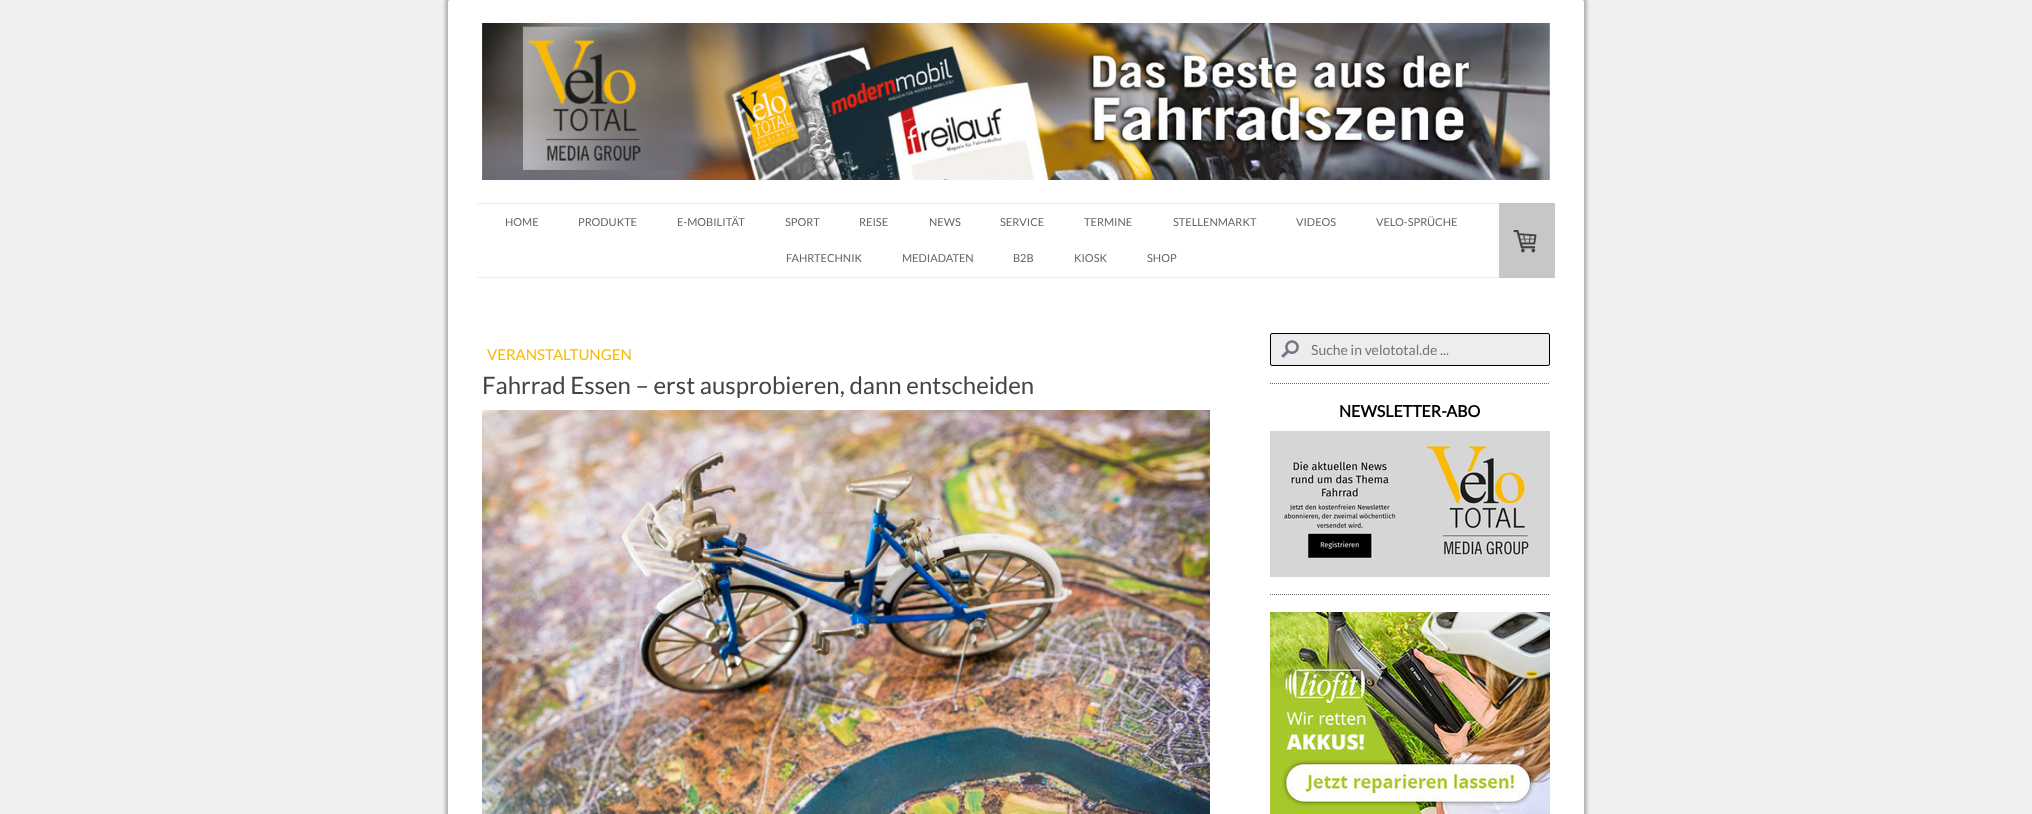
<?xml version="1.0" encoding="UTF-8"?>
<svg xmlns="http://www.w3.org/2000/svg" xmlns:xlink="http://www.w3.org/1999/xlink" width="2032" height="814">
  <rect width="100%" height="100%" fill="#f0f0f0" />
  <rect x="445" y="-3" width="1142" height="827" rx="5" fill="#333333" fill-opacity="0.3" filter="blur(1.5px)" />
  <rect x="448" width="1136" height="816" rx="2" fill="#ffffff" />
  <rect x="1499" y="204" width="56" height="73" fill="#c7c7c7" />
  <image x="482" y="23" width="1068" height="157" xlink:href="image1.png" />
  <rect x="477" y="203" width="1022" height="1" fill="#ededed" />
  <rect x="1499" y="203" width="56" height="1" fill="#c2c2c2" />
  <rect x="477" y="277" width="1022" height="1" fill="#ededed" />
  <rect x="1499" y="277" width="56" height="1" fill="#c2c2c2" />
  <image x="1513" y="230" width="24" height="23" xlink:href="image2.png" />
  <image x="482" y="410" width="728" height="404" xlink:href="image3.png" />
  <rect x="1270.5" y="333.5" width="279" height="32" rx="1.5" fill="#ededed" stroke="#000000" />
  <image x="1281" y="340" width="18" height="18" xlink:href="image4.png" />
  <path d="M 1270 383.5 h 280" fill="none" stroke="#666666" stroke-dasharray="1 1" />
  <image x="1270" y="431" width="280" height="146" xlink:href="image5.png" />
  <path d="M 1270 594.5 h 280" fill="none" stroke="#666666" stroke-dasharray="1 1" />
  <image x="1270" y="612" width="280" height="202" xlink:href="image6.png" />
  <text x="505" y="226" style="font-family: Lato; font-size: 11px; fill: #666666">HOME</text>
  <text x="578" y="226" style="font-family: Lato; font-size: 11px; fill: #666666">PRODUKTE</text>
  <text x="677" y="226" style="font-family: Lato; font-size: 11px; fill: #666666">E-MOBILITÄT</text>
  <text x="785" y="226" style="font-family: Lato; font-size: 11px; fill: #666666">SPORT</text>
  <text x="859" y="226" style="font-family: Lato; font-size: 11px; fill: #666666">REISE</text>
  <text x="929" y="226" style="font-family: Lato; font-size: 11px; fill: #666666">NEWS</text>
  <text x="1000" y="226" style="font-family: Lato; font-size: 11px; fill: #666666">SERVICE</text>
  <text x="1084" y="226" style="font-family: Lato; font-size: 11px; fill: #666666">TERMINE</text>
  <text x="1173" y="226" style="font-family: Lato; font-size: 11px; fill: #666666">STELLENMARKT</text>
  <text x="1296" y="226" style="font-family: Lato; font-size: 11px; fill: #666666">VIDEOS</text>
  <text x="1376" y="226" style="font-family: Lato; font-size: 11px; fill: #666666">VELO-SPRÜCHE</text>
  <text x="786" y="262" style="font-family: Lato; font-size: 11px; fill: #666666">FAHRTECHNIK</text>
  <text x="902" y="262" style="font-family: Lato; font-size: 11px; fill: #666666">MEDIADATEN</text>
  <text x="1013" y="262" style="font-family: Lato; font-size: 11px; fill: #666666">B2B</text>
  <text x="1074" y="262" style="font-family: Lato; font-size: 11px; fill: #666666">KIOSK</text>
  <text x="1147" y="262" style="font-family: Lato; font-size: 11px; fill: #666666">SHOP</text>
  <text x="487" y="360" style="font-family: Lato; font-size: 15px; fill: #fbba00">VERANSTALTUNGEN</text>
  <text x="482" y="394" style="font-family: Lato; font-size: 24px; fill: #444444">Fahrrad Essen – erst ausprobieren, dann entscheiden</text>
  <text x="1311" y="355" style="font-family: Lato; font-size: 14px; fill: #757575">Suche in velototal.de ...</text>
  <text x="1339" y="417" style="font-family: Lato; font-size: 16px; font-weight: bold; fill: #000000">NEWSLETTER-ABO</text>
</svg>
